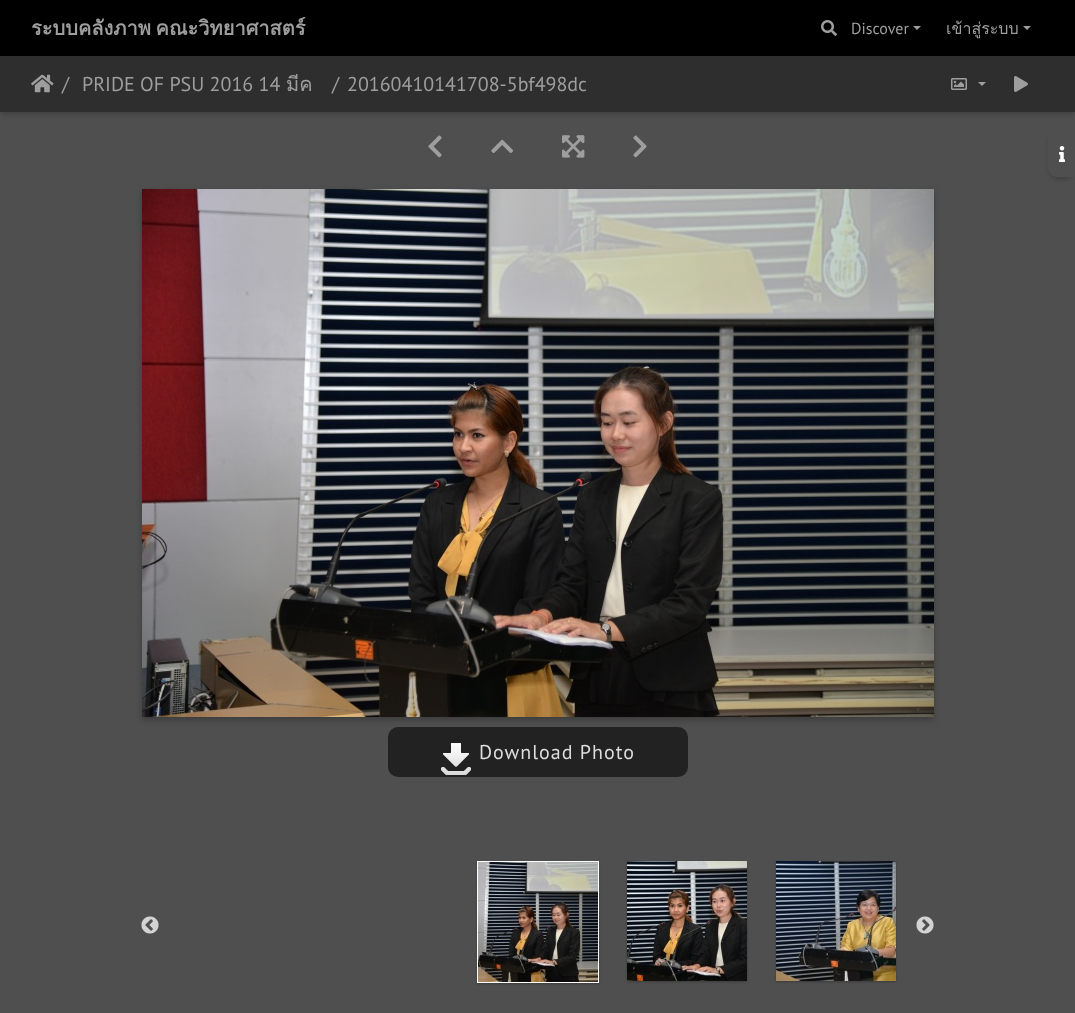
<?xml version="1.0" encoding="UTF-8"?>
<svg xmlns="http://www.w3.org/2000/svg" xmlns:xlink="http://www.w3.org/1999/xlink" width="1075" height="1013">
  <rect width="100%" height="100%" fill="#4f4f4f" />
  <rect x="1" y="60" width="1073" height="54" fill="#000000" fill-opacity="0.2" filter="blur(2.5px)" />
  <rect width="1075" height="56" fill="#000000" />
  <image x="821" y="20" width="16" height="16" xlink:href="image1.png" />
  <path d="M 913 26 h 8 l -4 4 z" fill="#9e9e9e" />
  <path d="M 1023 26 h 8 l -4 4 z" fill="#9e9e9e" />
  <rect y="56" width="1075" height="56" fill="#2e2e2e" />
  <image x="31" y="74" width="23" height="19" xlink:href="image2.png" />
  <image x="951" y="78" width="16" height="12" xlink:href="image3.png" />
  <path d="M 978 82 h 8 l -4 4 z" fill="#9e9e9e" />
  <image x="1014" y="76" width="14" height="16" xlink:href="image4.png" />
  <image x="428" y="135" width="14" height="23" xlink:href="image5.png" />
  <image x="491" y="139" width="22" height="14" xlink:href="image6.png" />
  <image x="562" y="135" width="23" height="23" xlink:href="image7.png" />
  <image x="633" y="135" width="14" height="23" xlink:href="image8.png" />
  <rect x="1049" y="135" width="25" height="44" rx="9" fill="#000000" fill-opacity="0.2" filter="blur(2.5px)" />
  <path d="M 1058 131 h 17 v 46 h -17 c -5.5 0 -10 -4.5 -10 -10 v -26 c 0 -5.5 4.5 -10 10 -10 z" fill="#4f4f4f" />
  <path d="M 1058 131 h 17 v 46 h -17 c -6 0 -10 -4 -10 -10 v -26 c 0 -6 4 -10 10 -10 z m 0 1 h 17 v 44 h -17 c -5 0 -9 -4 -9 -9 v -26 c 0 -5 4 -9 9 -9 z" fill="#4f4f4f" fill-rule="evenodd" />
  <image x="1059" y="146" width="6" height="16" xlink:href="image9.png" />
  <rect x="388" y="727" width="300" height="50" rx="10" fill="#222222" />
  <rect x="142" y="192" width="792" height="528" fill="#000000" fill-opacity="0.23" filter="blur(3px)" />
  <image x="142" y="189" width="792" height="528" xlink:href="image10.png" />
  <image x="441" y="743" width="30" height="32" xlink:href="image11.png" />
  <image x="141" y="916" width="18" height="18" xlink:href="image12.png" />
  <rect x="477" y="862" width="122" height="122" fill="#000000" fill-opacity="0.24" filter="blur(1px)" />
  <rect x="477.5" y="861.5" width="121" height="121" fill="none" stroke="#ffffff" />
  <image x="478" y="862" width="120" height="120" xlink:href="image13.png" />
  <rect x="627" y="862" width="120" height="120" fill="#000000" fill-opacity="0.24" filter="blur(1px)" />
  <image x="627" y="861" width="120" height="120" xlink:href="image14.png" />
  <rect x="776" y="862" width="120" height="120" fill="#000000" fill-opacity="0.24" filter="blur(1px)" />
  <image x="776" y="861" width="120" height="120" xlink:href="image15.png" />
  <image x="916" y="916" width="18" height="18" xlink:href="image16.png" />
  <text x="31" y="35" word-spacing="-2" style="font-family: Loma; font-size: 20px; font-weight: bold; fill: #9e9e9e">ระบบคลังภาพ คณะวิทยาศาสตร์</text>
  <text x="851" y="34" style="font-family: PT Sans; font-size: 16px; fill: #9e9e9e">Discover</text>
  <text x="946" y="34" style="font-family: Loma; font-size: 16px; fill: #9e9e9e">เข้าสู่ระบบ</text>
  <text x="62" y="91" style="font-family: PT Sans; font-size: 20px; fill: #9e9e9e">/</text>
  <text x="82" y="91" style="font-family: PT Sans; font-size: 20px; fill: #9e9e9e">PRIDE OF PSU 2016 14</text>
  <text x="286" y="91" style="font-family: Loma; font-size: 20px; fill: #9e9e9e">มีค</text>
  <text x="332" y="91" style="font-family: PT Sans; font-size: 20px; fill: #9e9e9e">/</text>
  <text x="347" y="91" style="font-family: PT Sans; font-size: 20px; fill: #9e9e9e">20160410141708-5bf498dc</text>
  <text x="479" y="759" style="font-family: PT Sans; font-size: 20px; letter-spacing: 1px; fill: #dddddd">Download Photo</text>
</svg>
